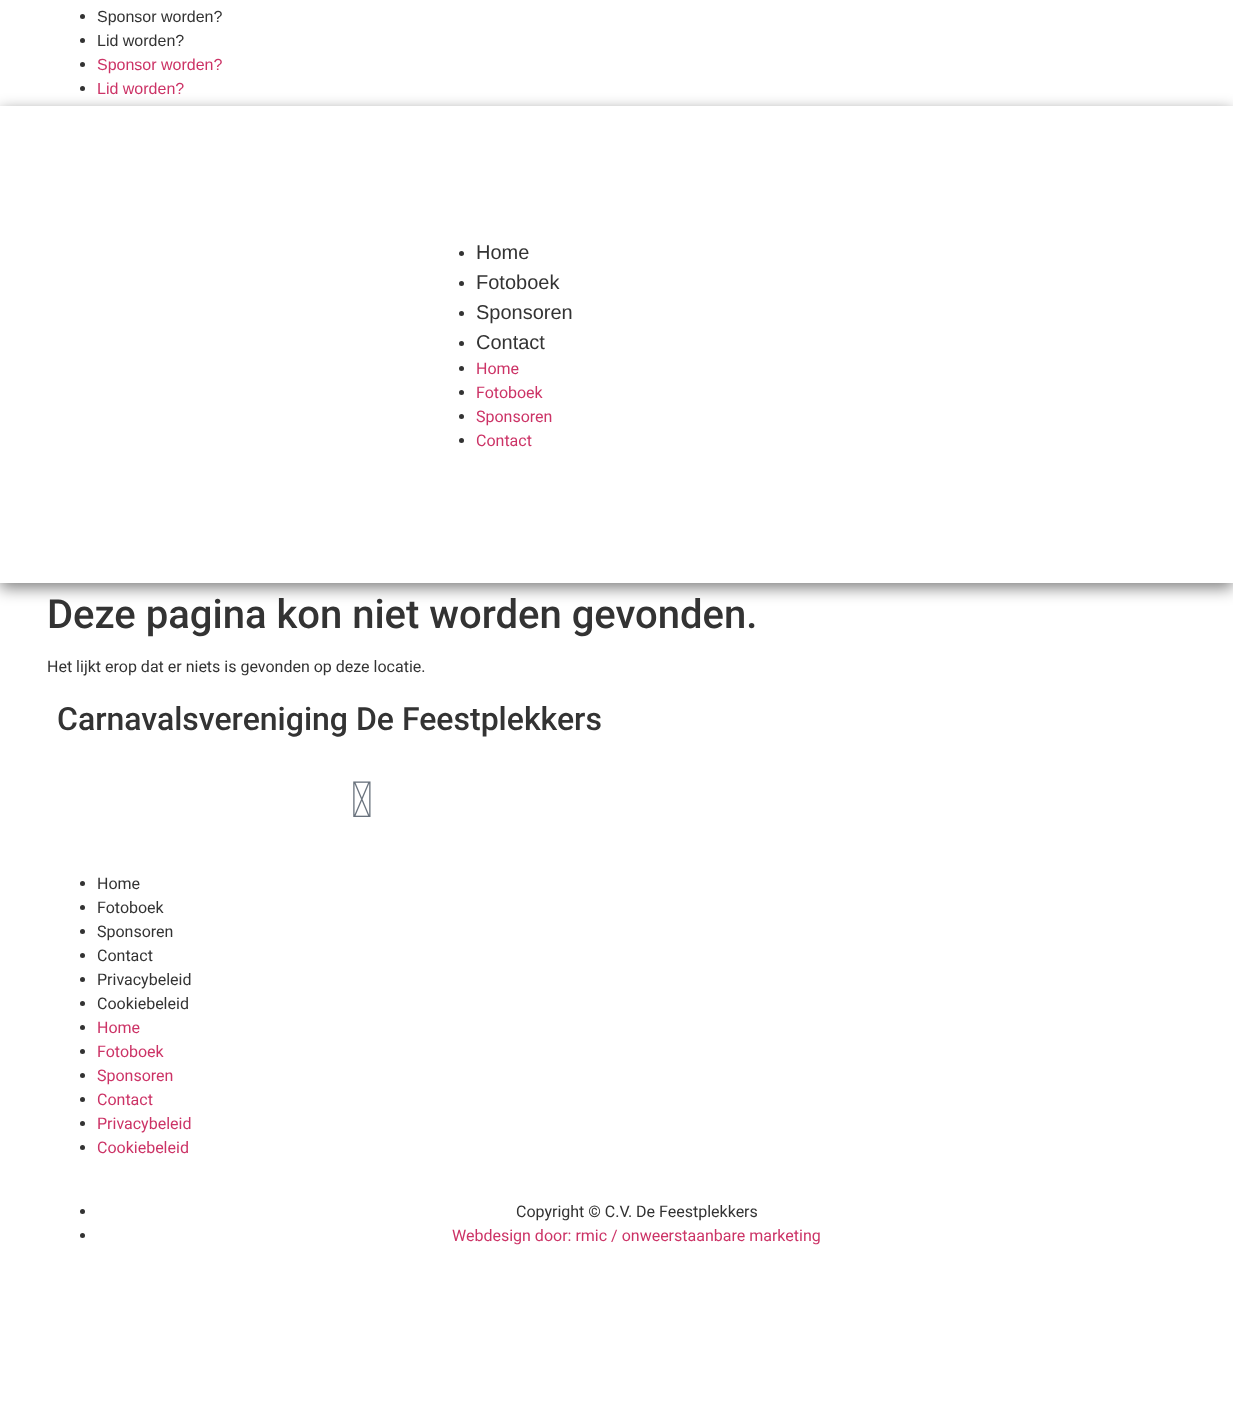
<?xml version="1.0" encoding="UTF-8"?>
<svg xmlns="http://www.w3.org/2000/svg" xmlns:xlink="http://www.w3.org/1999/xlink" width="1233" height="1418">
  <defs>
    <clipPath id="clip1"><path d="M 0 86 h 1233 v 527 h -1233 z m 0 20 h 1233 v 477 h -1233 z" clip-rule="evenodd" /></clipPath>
  </defs>
  <rect width="100%" height="100%" fill="#ffffff" />
  <circle cx="82.5" cy="16.5" r="2.5" fill="#333333" />
  <circle cx="82.5" cy="40.5" r="2.5" fill="#333333" />
  <circle cx="82.5" cy="64.5" r="2.5" fill="#333333" />
  <g clip-path="url(#clip1)">
    <rect y="111" width="1233" height="477" fill="#000000" fill-opacity="0.5" filter="blur(8px)" />
  </g>
  <circle cx="82.5" cy="88.5" r="2.5" fill="#333333" />
  <circle cx="461.5" cy="253.5" r="2.5" fill="#333333" />
  <circle cx="461.5" cy="283.5" r="2.5" fill="#333333" />
  <circle cx="461.5" cy="313.5" r="2.5" fill="#333333" />
  <circle cx="461.5" cy="343.5" r="2.5" fill="#333333" />
  <circle cx="461.5" cy="368.5" r="2.5" fill="#333333" />
  <circle cx="461.5" cy="392.5" r="2.5" fill="#333333" />
  <circle cx="461.5" cy="416.5" r="2.5" fill="#333333" />
  <circle cx="461.5" cy="440.5" r="2.5" fill="#333333" />
  <image x="353" y="781" width="18" height="36" xlink:href="image1.png" />
  <circle cx="82.5" cy="883.5" r="2.5" fill="#333333" />
  <circle cx="82.5" cy="907.5" r="2.5" fill="#333333" />
  <circle cx="82.5" cy="931.5" r="2.5" fill="#333333" />
  <circle cx="82.5" cy="955.5" r="2.5" fill="#333333" />
  <circle cx="82.5" cy="979.5" r="2.5" fill="#333333" />
  <circle cx="82.5" cy="1003.5" r="2.5" fill="#333333" />
  <circle cx="82.5" cy="1027.5" r="2.5" fill="#333333" />
  <circle cx="82.5" cy="1051.5" r="2.5" fill="#333333" />
  <circle cx="82.5" cy="1075.5" r="2.5" fill="#333333" />
  <circle cx="82.5" cy="1099.5" r="2.5" fill="#333333" />
  <circle cx="82.5" cy="1123.5" r="2.5" fill="#333333" />
  <circle cx="82.5" cy="1147.5" r="2.5" fill="#333333" />
  <circle cx="82.5" cy="1211.5" r="2.5" fill="#333333" />
  <circle cx="82.5" cy="1235.5" r="2.5" fill="#333333" />
  <text x="97" y="22" style="font-family: Liberation Sans; font-size: 16px; fill: #333333">Sponsor worden?</text>
  <text x="97" y="46" style="font-family: Liberation Sans; font-size: 16px; fill: #333333">Lid worden?</text>
  <text x="97" y="70" style="font-family: Liberation Sans; font-size: 16px; fill: #cc3366">Sponsor worden?</text>
  <text x="97" y="94" style="font-family: Liberation Sans; font-size: 16px; fill: #cc3366">Lid worden?</text>
  <text x="476" y="259" style="font-family: Liberation Sans; font-size: 20px; fill: #333333">Home</text>
  <text x="476" y="289" style="font-family: Liberation Sans; font-size: 20px; fill: #333333">Fotoboek</text>
  <text x="476" y="319" style="font-family: Liberation Sans; font-size: 20px; fill: #333333">Sponsoren</text>
  <text x="476" y="349" style="font-family: Liberation Sans; font-size: 20px; fill: #333333">Contact</text>
  <text x="476" y="374" style="font-family: Roboto; font-size: 16px; fill: #cc3366">Home</text>
  <text x="476" y="398" style="font-family: Roboto; font-size: 16px; fill: #cc3366">Fotoboek</text>
  <text x="476" y="422" style="font-family: Roboto; font-size: 16px; fill: #cc3366">Sponsoren</text>
  <text x="476" y="446" style="font-family: Roboto; font-size: 16px; fill: #cc3366">Contact</text>
  <text x="47" y="628" style="font-family: Roboto; font-size: 40px; font-weight: 500; fill: #333333">Deze pagina kon niet worden gevonden.</text>
  <text x="47" y="672" style="font-family: Roboto; font-size: 16px; fill: #333333">Het lijkt erop dat er niets is gevonden op deze locatie.</text>
  <text x="57" y="730" style="font-family: Roboto; font-size: 32px; font-weight: 500; fill: #333333">Carnavalsvereniging De Feestplekkers</text>
  <text x="97" y="889" style="font-family: Roboto; font-size: 16px; fill: #333333">Home</text>
  <text x="97" y="913" style="font-family: Roboto; font-size: 16px; fill: #333333">Fotoboek</text>
  <text x="97" y="937" style="font-family: Roboto; font-size: 16px; fill: #333333">Sponsoren</text>
  <text x="97" y="961" style="font-family: Roboto; font-size: 16px; fill: #333333">Contact</text>
  <text x="97" y="985" style="font-family: Roboto; font-size: 16px; fill: #333333">Privacybeleid</text>
  <text x="97" y="1009" style="font-family: Roboto; font-size: 16px; fill: #333333">Cookiebeleid</text>
  <text x="97" y="1033" style="font-family: Roboto; font-size: 16px; fill: #cc3366">Home</text>
  <text x="97" y="1057" style="font-family: Roboto; font-size: 16px; fill: #cc3366">Fotoboek</text>
  <text x="97" y="1081" style="font-family: Roboto; font-size: 16px; fill: #cc3366">Sponsoren</text>
  <text x="97" y="1105" style="font-family: Roboto; font-size: 16px; fill: #cc3366">Contact</text>
  <text x="97" y="1129" style="font-family: Roboto; font-size: 16px; fill: #cc3366">Privacybeleid</text>
  <text x="97" y="1153" style="font-family: Roboto; font-size: 16px; fill: #cc3366">Cookiebeleid</text>
  <text x="516" y="1217" style="font-family: Roboto; font-size: 16px; fill: #333333">Copyright © C.V. De Feestplekkers</text>
  <text x="452" y="1241" style="font-family: Roboto; font-size: 16px; fill: #cc3366">Webdesign door: rmic / onweerstaanbare marketing</text>
</svg>
